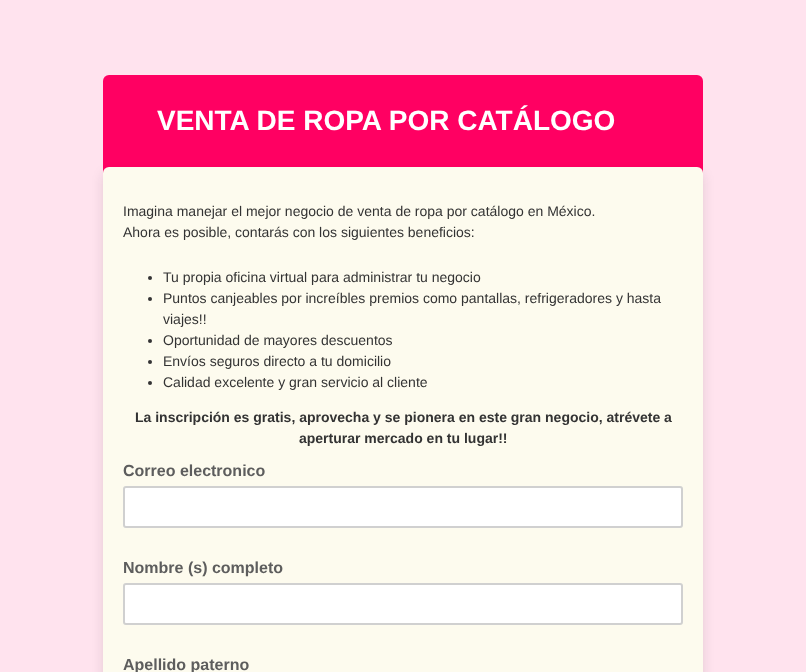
<?xml version="1.0" encoding="UTF-8"?>
<svg xmlns="http://www.w3.org/2000/svg" xmlns:xlink="http://www.w3.org/1999/xlink" width="806" height="672">
  <rect width="100%" height="100%" fill="#ffe3ee" />
  <rect x="103" y="75" width="600" height="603" rx="6" fill="#ff0062" />
  <rect x="103" y="173" width="600" height="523" rx="6" fill="#0d1216" fill-opacity="0.12" filter="blur(6px)" />
  <rect x="103" y="167" width="600" height="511" rx="6" fill="#fdfbee" />
  <circle cx="150" cy="278" r="2" fill="#333333" />
  <circle cx="150" cy="299" r="2" fill="#333333" />
  <circle cx="150" cy="341" r="2" fill="#333333" />
  <circle cx="150" cy="362" r="2" fill="#333333" />
  <circle cx="150" cy="383" r="2" fill="#333333" />
  <rect x="124" y="487" width="558" height="40" rx="2" fill="#ffffff" stroke="#d0d0d0" stroke-width="2" />
  <rect x="124" y="584" width="558" height="40" rx="2" fill="#ffffff" stroke="#d0d0d0" stroke-width="2" />
  <text x="157" y="130" style="font-family: Liberation Sans; font-size: 28px; font-weight: bold; fill: #ffffff">VENTA DE ROPA POR CATÁLOGO</text>
  <text x="123" y="216" style="font-family: Liberation Sans; font-size: 14px; fill: #333333">Imagina manejar el mejor negocio de venta de ropa por catálogo en México.</text>
  <text x="123" y="237" style="font-family: Liberation Sans; font-size: 14px; fill: #333333">Ahora es posible, contarás con los siguientes beneficios:</text>
  <text x="163" y="282" style="font-family: Liberation Sans; font-size: 14px; fill: #333333">Tu propia oficina virtual para administrar tu negocio</text>
  <text x="163" y="303" style="font-family: Liberation Sans; font-size: 14px; fill: #333333">Puntos canjeables por increíbles premios como pantallas, refrigeradores y hasta</text>
  <text x="163" y="324" style="font-family: Liberation Sans; font-size: 14px; fill: #333333">viajes!!</text>
  <text x="163" y="345" style="font-family: Liberation Sans; font-size: 14px; fill: #333333">Oportunidad de mayores descuentos</text>
  <text x="163" y="366" style="font-family: Liberation Sans; font-size: 14px; fill: #333333">Envíos seguros directo a tu domicilio</text>
  <text x="163" y="387" style="font-family: Liberation Sans; font-size: 14px; fill: #333333">Calidad excelente y gran servicio al cliente</text>
  <text x="135" y="422" style="font-family: Liberation Sans; font-size: 14px; font-weight: bold; fill: #333333">La inscripción es gratis, aprovecha y se pionera en este gran negocio, atrévete a</text>
  <text x="299" y="443" style="font-family: Liberation Sans; font-size: 14px; font-weight: bold; fill: #333333">aperturar mercado en tu lugar!!</text>
  <text x="123" y="476" style="font-family: Liberation Sans; font-size: 16px; font-weight: bold; fill: #5d5d5d">Correo electronico</text>
  <text x="123" y="573" style="font-family: Liberation Sans; font-size: 16px; font-weight: bold; fill: #5d5d5d">Nombre (s) completo</text>
  <text x="123" y="670" style="font-family: Liberation Sans; font-size: 16px; font-weight: bold; fill: #5d5d5d">Apellido paterno</text>
</svg>
